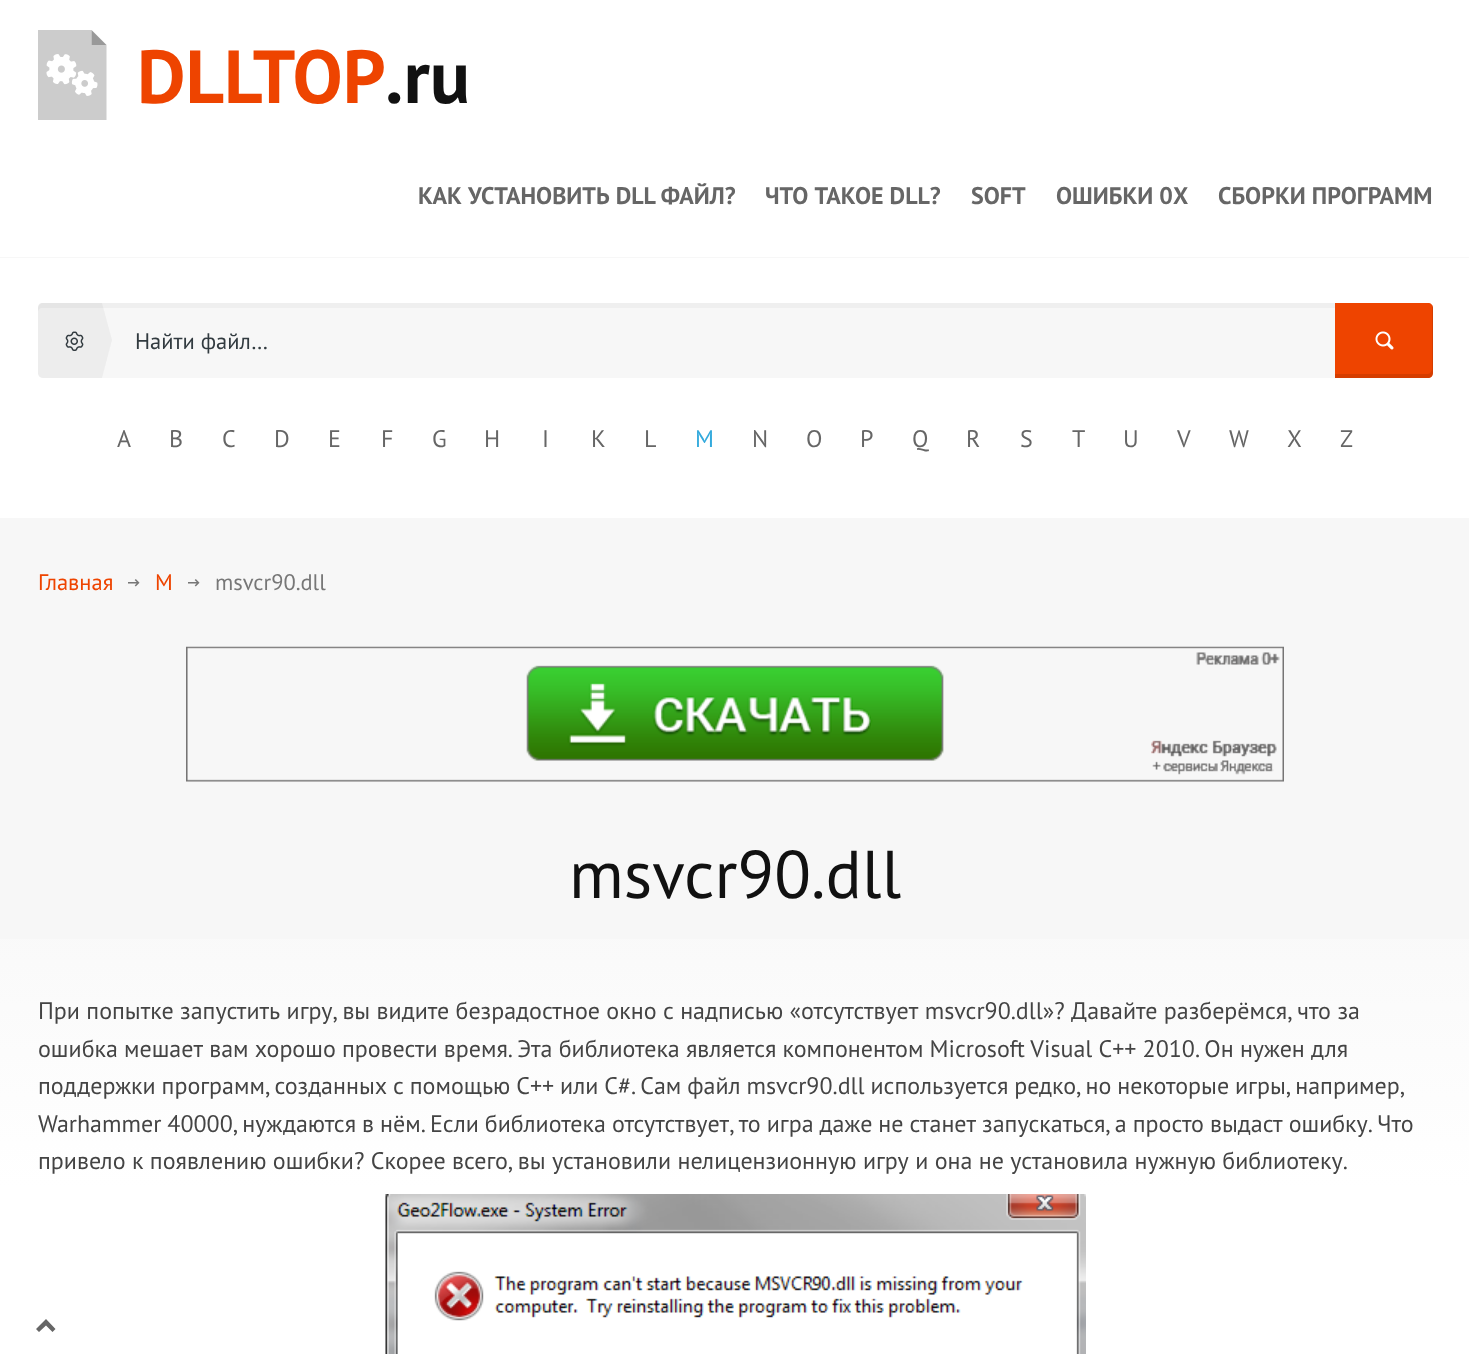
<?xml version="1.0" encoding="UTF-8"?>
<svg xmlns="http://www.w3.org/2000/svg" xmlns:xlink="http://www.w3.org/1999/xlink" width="1469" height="1354">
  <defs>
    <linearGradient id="g1" gradientUnits="userSpaceOnUse" x1="735" y1="826" x2="735" y2="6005"><stop offset="0" stop-color="#f7f7f7" /><stop offset="0.07" stop-color="#ffffff" /></linearGradient>
  </defs>
  <rect width="100%" height="100%" fill="#f7f7f7" />
  <rect width="1469" height="257" fill="#ffffff" />
  <image x="38" y="30" width="69" height="90" xlink:href="image1.png" />
  <rect y="258" width="1469" height="260" fill="#ffffff" />
  <rect x="38" y="303" width="1395" height="75" rx="5" fill="#f7f7f7" />
  <path d="M 42 308 h 1386 c 2 0 4 2 4 4 v 64 c 1 -1 1 -2 1 -3 v -65 c 0 -3 -2 -5 -5 -5 h -1385 c -3 0 -5 2 -5 5 v 4 c 0 -2 2 -4 4 -4 z" fill="#000000" fill-opacity="0.03" />
  <path d="M 102 378 l 10 -38 l -10 -37 h -60 c -3 0 -4 2 -4 5 v 65 c 0 3 2 5 5 5 z" fill="#323b40" fill-opacity="0.05" />
  <path d="M 1335 303 h 93 c 3 0 5 2 5 5 v 65 c 0 3 -2 5 -5 5 h -93 z" fill="#ee4400" />
  <image x="1375" y="331" width="19" height="19" xlink:href="image2.png" />
  <path d="M 1335 374 v 4 h 93 c 3 0 5 -2 5 -5 v -65 c 0 -1 0 -2 -1 -3 v 64 c 0 2 -2 5 -4 5 z" fill="#000000" fill-opacity="0.1" />
  <image x="65" y="331" width="19" height="20" xlink:href="image3.png" />
  <image x="128" y="579" width="12" height="8" xlink:href="image4.png" />
  <image x="188" y="579" width="12" height="8" xlink:href="image4.png" />
  <image x="186" y="646" width="1098" height="136" xlink:href="image5.png" />
  <rect y="939" width="1469" height="415" fill="url(#g1)" />
  <image x="385" y="1194" width="701" height="160" xlink:href="image6.png" />
  <path d="M 46 1319 l -10 10 l 3 3 l 7 -6.5 l 6.5 6.5 l 3 -3 z" fill="#666666" fill-rule="evenodd" />
  <text x="137" y="103" style="font-family: PT Sans; font-size: 75px; font-weight: bold; fill: #ee4400">DLLTOP</text>
  <text x="385" y="103" style="font-family: PT Sans; font-size: 75px; font-weight: bold; fill: #111111">.ru</text>
  <text x="418" y="204" style="font-family: PT Sans; font-size: 24px; font-weight: bold; fill: #666666">КАК УСТАНОВИТЬ DLL ФАЙЛ?</text>
  <text x="765" y="204" style="font-family: PT Sans; font-size: 24px; font-weight: bold; fill: #666666">ЧТО ТАКОЕ DLL?</text>
  <text x="971" y="204" style="font-family: PT Sans; font-size: 24px; font-weight: bold; fill: #666666">SOFT</text>
  <text x="1056" y="204" style="font-family: PT Sans; font-size: 24px; font-weight: bold; fill: #666666">ОШИБКИ 0X</text>
  <text x="1218" y="204" style="font-family: PT Sans; font-size: 24px; font-weight: bold; fill: #666666">СБОРКИ ПРОГРАММ</text>
  <text x="135" y="349" style="font-family: PT Sans; font-size: 22.5px; fill: #323b40">Найти файл…</text>
  <text x="117" y="447" style="font-family: PT Sans; font-size: 24px; fill: #666666">A</text>
  <text x="169" y="447" style="font-family: PT Sans; font-size: 24px; fill: #666666">B</text>
  <text x="222" y="447" style="font-family: PT Sans; font-size: 24px; fill: #666666">C</text>
  <text x="274" y="447" style="font-family: PT Sans; font-size: 24px; fill: #666666">D</text>
  <text x="328" y="447" style="font-family: PT Sans; font-size: 24px; fill: #666666">E</text>
  <text x="381" y="447" style="font-family: PT Sans; font-size: 24px; fill: #666666">F</text>
  <text x="432" y="447" style="font-family: PT Sans; font-size: 24px; fill: #666666">G</text>
  <text x="484" y="447" style="font-family: PT Sans; font-size: 24px; fill: #666666">H</text>
  <text x="542" y="447" style="font-family: PT Sans; font-size: 24px; fill: #666666">I</text>
  <text x="591" y="447" style="font-family: PT Sans; font-size: 24px; fill: #666666">K</text>
  <text x="644" y="447" style="font-family: PT Sans; font-size: 24px; fill: #666666">L</text>
  <text x="695" y="447" style="font-family: PT Sans; font-size: 24px; fill: #33aadd">M</text>
  <text x="752" y="447" style="font-family: PT Sans; font-size: 24px; fill: #666666">N</text>
  <text x="806" y="447" style="font-family: PT Sans; font-size: 24px; fill: #666666">O</text>
  <text x="860" y="447" style="font-family: PT Sans; font-size: 24px; fill: #666666">P</text>
  <text x="912" y="447" style="font-family: PT Sans; font-size: 24px; fill: #666666">Q</text>
  <text x="966" y="447" style="font-family: PT Sans; font-size: 24px; fill: #666666">R</text>
  <text x="1020" y="447" style="font-family: PT Sans; font-size: 24px; fill: #666666">S</text>
  <text x="1072" y="447" style="font-family: PT Sans; font-size: 24px; fill: #666666">T</text>
  <text x="1123" y="447" style="font-family: PT Sans; font-size: 24px; fill: #666666">U</text>
  <text x="1177" y="447" style="font-family: PT Sans; font-size: 24px; fill: #666666">V</text>
  <text x="1229" y="447" style="font-family: PT Sans; font-size: 24px; fill: #666666">W</text>
  <text x="1287" y="447" style="font-family: PT Sans; font-size: 24px; fill: #666666">X</text>
  <text x="1340" y="447" style="font-family: PT Sans; font-size: 24px; fill: #666666">Z</text>
  <text x="38" y="590" style="font-family: PT Sans; font-size: 22.5px; fill: #ee4400">Главная</text>
  <text x="155" y="590" style="font-family: PT Sans; font-size: 22.5px; fill: #ee4400">M</text>
  <text x="215" y="590" style="font-family: PT Sans; font-size: 22.5px; fill: #777777">msvcr90.dll</text>
  <text x="569" y="898" style="font-family: PT Sans; font-size: 67.5px; fill: #111111">msvcr90.dll</text>
  <text x="38" y="1019" style="font-family: PT Sans; font-size: 24px; fill: #444444">При попытке запустить игру, вы видите безрадостное окно с надписью «отсутствует msvcr90.dll»? Давайте разберёмся, что за</text>
  <text x="38" y="1057" word-spacing="-0.25" style="font-family: PT Sans; font-size: 24px; fill: #444444">ошибка мешает вам хорошо провести время. Эта библиотека является компонентом Microsoft Visual C++ 2010. Он нужен для</text>
  <text x="38" y="1094" word-spacing="-0.5" style="font-family: PT Sans; font-size: 24px; fill: #444444">поддержки программ, созданных с помощью C++ или C#. Сам файл msvcr90.dll используется редко, но некоторые игры, например,</text>
  <text x="38" y="1132" word-spacing="-0.4" style="font-family: PT Sans; font-size: 24px; fill: #444444">Warhammer 40000, нуждаются в нём. Если библиотека отсутствует, то игра даже не станет запускаться, а просто выдаст ошибку. Что</text>
  <text x="38" y="1169" style="font-family: PT Sans; font-size: 24px; fill: #444444">привело к появлению ошибки? Скорее всего, вы установили нелицензионную игру и она не установила нужную библиотеку.</text>
</svg>
